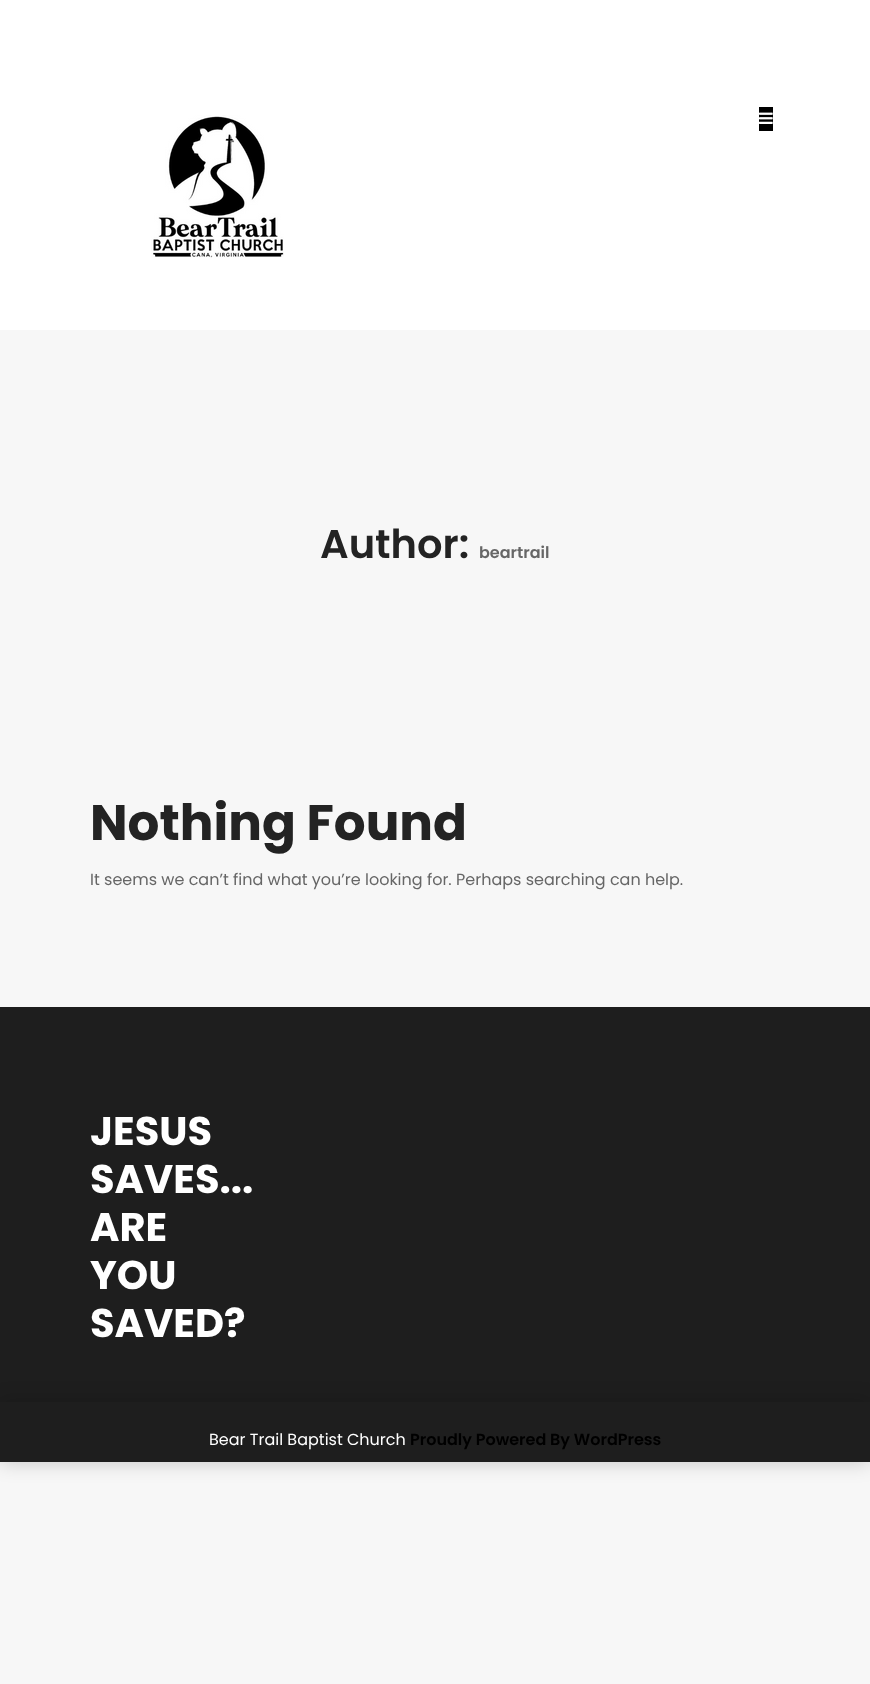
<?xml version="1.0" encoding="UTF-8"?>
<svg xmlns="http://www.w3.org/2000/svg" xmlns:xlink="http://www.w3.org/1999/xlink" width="870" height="1684">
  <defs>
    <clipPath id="clip1"><path d="M 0 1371 h 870 v 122 h -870 z m 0 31 h 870 v 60 h -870 z" clip-rule="evenodd" /></clipPath>
  </defs>
  <rect width="100%" height="100%" fill="#f7f7f7" />
  <rect width="870" height="330" fill="#ffffff" />
  <image x="151" y="115" width="133" height="143" xlink:href="image1.png" />
  <rect x="759" y="107" width="14" height="24" fill="#000000" />
  <image x="759" y="112" width="14" height="12" xlink:href="image2.png" />
  <rect y="1007" width="870" height="455" fill="#1e1e1e" />
  <g clip-path="url(#clip1)">
    <rect y="1402" width="870" height="60" fill="#000000" fill-opacity="0.2" filter="blur(10px)" />
  </g>
  <text x="320" y="558" style="font-family: Poppins; font-size: 40px; font-weight: 600; fill: #232323">Author:</text>
  <text x="479" y="558" style="font-family: Poppins; font-size: 16px; font-weight: 600; fill: #666666">beartrail</text>
  <text x="90" y="840" style="font-family: Poppins; font-size: 50px; font-weight: bold; fill: #232323">Nothing Found</text>
  <text x="90" y="885" style="font-family: Poppins; font-size: 16px; fill: #666666">It seems we can’t find what you’re looking for. Perhaps searching can help.</text>
  <text x="90" y="1145" style="font-family: Poppins; font-size: 40px; font-weight: bold; fill: #ffffff">JESUS</text>
  <text x="90" y="1193" style="font-family: Poppins; font-size: 40px; font-weight: bold; fill: #ffffff">SAVES...</text>
  <text x="90" y="1241" style="font-family: Poppins; font-size: 40px; font-weight: bold; fill: #ffffff">ARE</text>
  <text x="90" y="1289" style="font-family: Poppins; font-size: 40px; font-weight: bold; fill: #ffffff">YOU</text>
  <text x="90" y="1337" style="font-family: Poppins; font-size: 40px; font-weight: bold; fill: #ffffff">SAVED?</text>
  <text x="209" y="1445" style="font-family: Poppins; font-size: 16px; fill: #ffffff">Bear Trail Baptist Church</text>
  <text x="410" y="1445" style="font-family: Poppins; font-size: 16px; font-weight: 600; fill: #000000">Proudly Powered By WordPress</text>
</svg>
